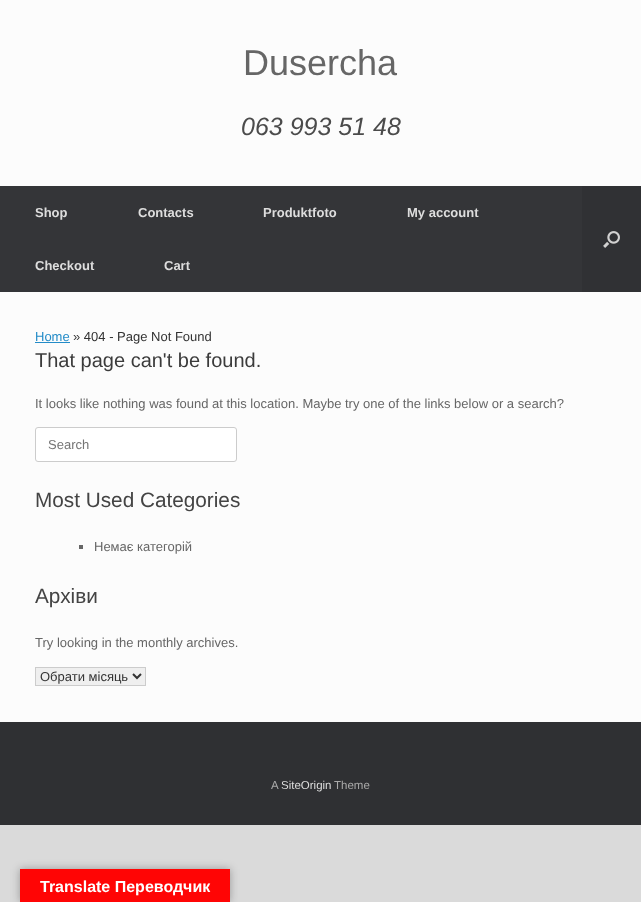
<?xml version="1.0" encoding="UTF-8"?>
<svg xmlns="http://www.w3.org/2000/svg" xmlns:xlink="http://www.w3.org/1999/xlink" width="641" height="902">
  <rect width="100%" height="100%" fill="#dadada" />
  <rect width="641" height="186" fill="#fcfcfc" />
  <rect y="186" width="582" height="106" fill="#343538" />
  <rect x="582" y="186" width="59" height="106" fill="#303134" />
  <image x="603" y="231" width="17" height="17" xlink:href="image1.png" />
  <rect y="292" width="641" height="430" fill="#fcfcfc" />
  <rect x="35" y="342" width="35" height="1" fill="#248cc8" />
  <rect x="35.5" y="427.5" width="201" height="34" rx="2.5" fill="#ffffff" stroke="#cccccc" />
  <rect x="79" y="545" width="4" height="4" fill="#666666" />
  <rect x="35.5" y="667.5" width="110" height="18" fill="#efefef" stroke="#cccccc" />
  <path d="M 133 674 l 4 4 l 4 -4" fill="none" stroke="#333333" stroke-width="2" />
  <rect y="722" width="641" height="103" fill="#2f3033" />
  <rect x="20" y="869" width="210" height="33" fill="#000000" fill-opacity="0.3" filter="blur(4.5px)" />
  <rect x="20" y="869" width="210" height="33" fill="#ff0505" />
  <text x="243" y="75" style="font-family: Liberation Sans; font-size: 36px; fill: #666666">Dusercha</text>
  <text x="241" y="135" style="font-family: Liberation Sans; font-size: 25px; font-style: italic; fill: #4b4b4b">063 993 51 48</text>
  <text x="35" y="217" style="font-family: Liberation Sans; font-size: 13px; font-weight: bold; fill: #dddddd">Shop</text>
  <text x="138" y="217" style="font-family: Liberation Sans; font-size: 13px; font-weight: bold; fill: #dddddd">Сontacts</text>
  <text x="263" y="217" style="font-family: Liberation Sans; font-size: 13px; font-weight: bold; fill: #dddddd">Produktfoto</text>
  <text x="407" y="217" style="font-family: Liberation Sans; font-size: 13px; font-weight: bold; fill: #dddddd">My account</text>
  <text x="35" y="270" style="font-family: Liberation Sans; font-size: 13px; font-weight: bold; fill: #dddddd">Checkout</text>
  <text x="164" y="270" style="font-family: Liberation Sans; font-size: 13px; font-weight: bold; fill: #dddddd">Cart</text>
  <text x="35" y="341" style="font-family: Liberation Sans; font-size: 13px; fill: #248cc8">Home</text>
  <text x="73" y="341" style="font-family: Liberation Sans; font-size: 13px; fill: #333333">» 404 - Page Not Found</text>
  <text x="35" y="367" style="font-family: Liberation Sans; font-size: 20px; fill: #3b3b3b">That page can't be found.</text>
  <text x="35" y="408" style="font-family: Liberation Sans; font-size: 13px; fill: #666666">It looks like nothing was found at this location. Maybe try one of the links below or a search?</text>
  <text x="48" y="449" style="font-family: Liberation Sans; font-size: 13px; fill: #757575">Search</text>
  <text x="35" y="507" style="font-family: Liberation Sans; font-size: 20.75px; fill: #444444">Most Used Categories</text>
  <text x="94" y="551" style="font-family: Liberation Sans; font-size: 13px; fill: #666666">Немає категорій</text>
  <text x="35" y="603" style="font-family: Liberation Sans; font-size: 20.75px; fill: #444444">Архіви</text>
  <text x="35" y="647" style="font-family: Liberation Sans; font-size: 13px; fill: #666666">Try looking in the monthly archives.</text>
  <text x="40" y="681" style="font-family: Liberation Sans; font-size: 13px; fill: #333333">Обрати місяць</text>
  <text x="271" y="789" style="font-family: Liberation Sans; font-size: 11.5px; fill: #aaaaaa">A</text>
  <text x="281" y="789" style="font-family: Liberation Sans; font-size: 11.5px; fill: #dddddd">SiteOrigin</text>
  <text x="334" y="789" style="font-family: Liberation Sans; font-size: 11.5px; fill: #aaaaaa">Theme</text>
  <text x="40" y="892" style="font-family: Liberation Sans; font-size: 16px; font-weight: bold; fill: #ffffff">Translate Переводчик</text>
</svg>
